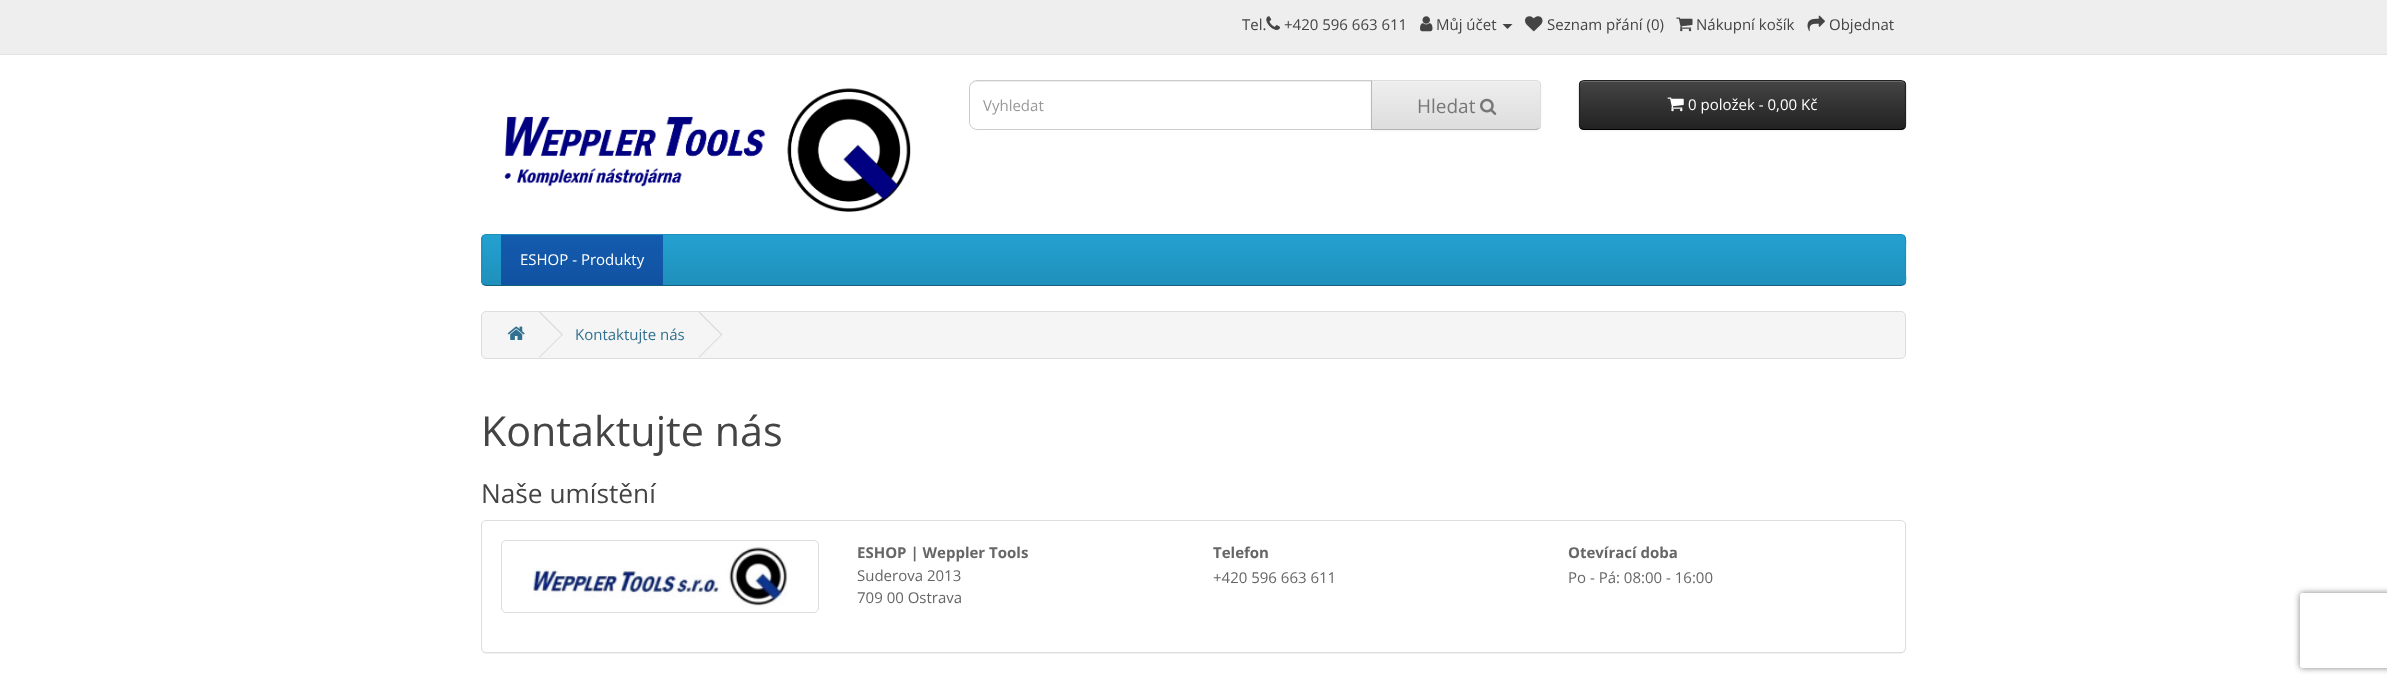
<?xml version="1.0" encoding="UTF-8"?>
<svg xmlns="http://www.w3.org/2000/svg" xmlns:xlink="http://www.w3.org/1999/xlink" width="2387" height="685">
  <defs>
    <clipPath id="clip1"><path d="M 1371 80 h 165 c 3 0 5 2 5 5 v 40 c 0 3 -2 5 -5 5 h -165 z" /></clipPath>
    <linearGradient id="g1" gradientUnits="userSpaceOnUse" x1="1456" y1="81" x2="1456" y2="129"><stop offset="0" stop-color="#eeeeee" /><stop offset="1" stop-color="#dddddd" /></linearGradient>
    <clipPath id="clip2"><rect x="1579" y="80" width="327" height="50" rx="5" /></clipPath>
    <linearGradient id="g2" gradientUnits="userSpaceOnUse" x1="1743" y1="81" x2="1743" y2="129"><stop offset="0" stop-color="#444444" /><stop offset="1" stop-color="#222222" /></linearGradient>
    <clipPath id="clip3"><rect x="481" y="234" width="1425" height="52" rx="5" /></clipPath>
    <linearGradient id="g3" gradientUnits="userSpaceOnUse" x1="1194" y1="235" x2="1194" y2="285"><stop offset="0" stop-color="#23a1d1" /><stop offset="1" stop-color="#1f90bb" /></linearGradient>
    <clipPath id="clip4"><path d="M 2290 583 h 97 v 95 h -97 z m 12.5 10 h 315 c 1.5 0 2.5 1 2.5 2.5 v 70 c 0 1.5 -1 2.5 -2.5 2.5 h -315 c -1.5 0 -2.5 -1 -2.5 -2.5 v -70 c 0 -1.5 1 -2.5 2.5 -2.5 z" clip-rule="evenodd" /></clipPath>
  </defs>
  <rect width="100%" height="100%" fill="#ffffff" />
  <rect width="2387" height="54" fill="#eeeeee" />
  <rect y="54" width="2387" height="1" fill="#e2e2e2" />
  <image x="1266" y="16" width="14" height="14" xlink:href="image1.png" />
  <image x="1420" y="16" width="13" height="16" xlink:href="image2.png" />
  <path d="M 1502.5 24 h 10 l -5 5 z" fill="#444444" />
  <image x="1525" y="16" width="18" height="16" xlink:href="image3.png" />
  <image x="1676" y="17" width="17" height="15" xlink:href="image4.png" />
  <image x="1807" y="15" width="18" height="17" xlink:href="image5.png" />
  <image x="504" y="88" width="407" height="124" xlink:href="image6.png" />
  <path d="M 976 82 h 395 v -1 h -395 c -5 0 -6 4 -6 8 c 0 -4 3 -7 6 -7 z" fill="#ececec" />
  <path d="M 977 80.5 h 395.5 v 49 h -395.5 c -4 0 -7.5 -3.5 -7.5 -7.5 v -34 c 0 -4 3.5 -7.5 7.5 -7.5 z" fill="none" stroke="#cccccc" />
  <rect x="1371" y="81" width="170" height="50" rx="5" fill="#000000" fill-opacity="0.05" filter="blur(1px)" />
  <g clip-path="url(#clip1)">
    <rect x="1372" y="81" width="169" height="48" fill="url(#g1)" />
  </g>
  <path d="M 1373 81 v 1 h 163 c 2 0 4 2 4 4 c 0 -3 -1 -5 -4 -5 z" fill="#f1f1f1" />
  <path d="M 1371 80 l 1 1 h 164 l 3 1 h 1 c -1 -1 -2 -2 -4 -2 z" fill="#dddddd" />
  <path d="M 1540 82 c 1 0 1 2 1 3 v 40 c 0 1 0 3 -1 3 h -1 c 1 -1 1 -2 1 -3 v -40 c 0 -1 0 -2 -1 -3 z" fill="#dddddd" />
  <path d="M 1371 130 h 166 l 3 -2 h -1 l -3 1 h -164 z" fill="#b3b3b3" />
  <path d="M 1372 81 l -1 -1 v 50 l 1 -1 z" fill="#b7b7b7" />
  <image x="1480" y="98" width="17" height="17" xlink:href="image7.png" />
  <rect x="1579" y="81" width="327" height="50" rx="5" fill="#000000" fill-opacity="0.05" filter="blur(1px)" />
  <g clip-path="url(#clip2)">
    <rect x="1579" y="81" width="327" height="48" fill="url(#g2)" />
  </g>
  <path d="M 1584 82 h 317 c 2 0 4 2 4 4 v -1 c 0 -2 -2 -4 -4 -4 h -317 c -2 0 -4 2 -4 4 v 1 c 0 -2 2 -4 4 -4 z" fill="#696969" />
  <path d="M 1904.5 128 c -1 1 -2 1.5 -3.5 1.5 h -317 c -1.5 0 -2.5 -0.5 -3.5 -1.5" fill="none" stroke="#000000" stroke-width="1.2" />
  <path d="M 1580.5 128 c -0.5 -0.5 -1 -2 -1 -3 v -40 c 0 -1 0.5 -2.5 1 -3 c 1 -1 2 -1.5 3.5 -1.5 h 317 c 1.5 0 2.5 0.5 3.5 1.5 c 0.5 0.5 1 2 1 3 v 40 c 0 1 -0.5 2.5 -1 3" fill="none" stroke="#222222" stroke-width="1.2" />
  <image x="1667" y="97" width="17" height="15" xlink:href="image8.png" />
  <g clip-path="url(#clip3)">
    <rect x="481" y="235" width="1425" height="50" fill="url(#g3)" />
  </g>
  <path d="M 1904.5 284.5 l -3.5 1 h -1415 l -3 -1" fill="none" stroke="#145e7a" stroke-width="1.2" />
  <path d="M 483 284.5 c -2 -2.5 -1 -8 -1 -10.5 v -28 c 0 -3.5 -1.5 -11.5 4 -11.5 h 1415 c 6 0 4.5 8 4.5 11.5 v 28 c 0 2.5 1 8 -1 10.5" fill="none" stroke="#1f90bb" stroke-width="1.2" />
  <rect x="501" y="235" width="162" height="50" fill="#000080" fill-opacity="0.43" />
  <rect x="481.5" y="311.5" width="1424" height="47" rx="4.5" fill="#f5f5f5" stroke="#dddddd" />
  <image x="507" y="326" width="18" height="14" xlink:href="image9.png" />
  <path d="M 539 312.5 l 1 -1 l 23 23 l -1 1 z" fill="#dddddd" />
  <path d="M 539 357 l 23 -23 l 1 0.5 l -23 23 z" fill="#dddddd" />
  <path d="M 698.5 312.5 l 1 -1 l 23 23 l -1 1 z" fill="#dddddd" />
  <path d="M 698.5 357 l 23 -23 l 1 0.5 l -23 23 z" fill="#dddddd" />
  <rect x="481" y="521" width="1425" height="133" rx="5" fill="#000000" fill-opacity="0.05" filter="blur(0.5px)" />
  <rect x="481.5" y="520.5" width="1424" height="132" rx="4.5" fill="#ffffff" stroke="#dddddd" />
  <rect x="501.5" y="540.5" width="317" height="72" rx="4.5" fill="none" stroke="#dddddd" />
  <image x="533" y="547" width="255" height="59" xlink:href="image10.png" />
  <g clip-path="url(#clip4)">
    <rect x="2300" y="593" width="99" height="75" rx="2.5" fill="#808080" filter="blur(3px)" />
  </g>
  <text x="1242" y="30" style="font-family: Open Sans; font-size: 15px; fill: #444444">Tel.</text>
  <text x="1284" y="30" style="font-family: Open Sans; font-size: 15px; fill: #444444">+420 596 663 611</text>
  <text x="1436" y="30" style="font-family: Open Sans; font-size: 15px; fill: #444444">Můj účet</text>
  <text x="1547" y="30" style="font-family: Open Sans; font-size: 15px; fill: #444444">Seznam přání (0)</text>
  <text x="1696" y="30" style="font-family: Open Sans; font-size: 15px; fill: #444444">Nákupní košík</text>
  <text x="1829" y="30" style="font-family: Open Sans; font-size: 15px; fill: #444444">Objednat</text>
  <text x="983" y="111" style="font-family: Open Sans; font-size: 15px; fill: #999999">Vyhledat</text>
  <text x="1417" y="113" style="font-family: Open Sans; font-size: 19px; fill: #777777">Hledat</text>
  <text x="1688" y="110" style="font-family: Open Sans; font-size: 15px; fill: #ffffff">0 položek - 0,00 Kč</text>
  <text x="520" y="265" style="font-family: Open Sans; font-size: 15px; fill: #ffffff">ESHOP - Produkty</text>
  <text x="575" y="340" style="font-family: Open Sans; font-size: 15px; fill: #31708f">Kontaktujte nás</text>
  <text x="481" y="446" style="font-family: Open Sans; font-size: 41.25px; fill: #444444">Kontaktujte nás</text>
  <text x="481" y="503" style="font-family: Open Sans; font-size: 26.25px; fill: #444444">Naše umístění</text>
  <text x="857" y="558" style="font-family: Open Sans; font-size: 15px; font-weight: bold; fill: #666666">ESHOP | Weppler Tools</text>
  <text x="857" y="581" style="font-family: Open Sans; font-size: 15px; fill: #666666">Suderova 2013</text>
  <text x="857" y="603" style="font-family: Open Sans; font-size: 15px; fill: #666666">709 00 Ostrava</text>
  <text x="1213" y="558" style="font-family: Open Sans; font-size: 15px; font-weight: bold; fill: #666666">Telefon</text>
  <text x="1213" y="583" style="font-family: Open Sans; font-size: 15px; fill: #666666">+420 596 663 611</text>
  <text x="1568" y="558" style="font-family: Open Sans; font-size: 15px; font-weight: bold; fill: #666666">Otevírací doba</text>
  <text x="1568" y="583" style="font-family: Open Sans; font-size: 15px; fill: #666666">Po - Pá: 08:00 - 16:00</text>
</svg>
